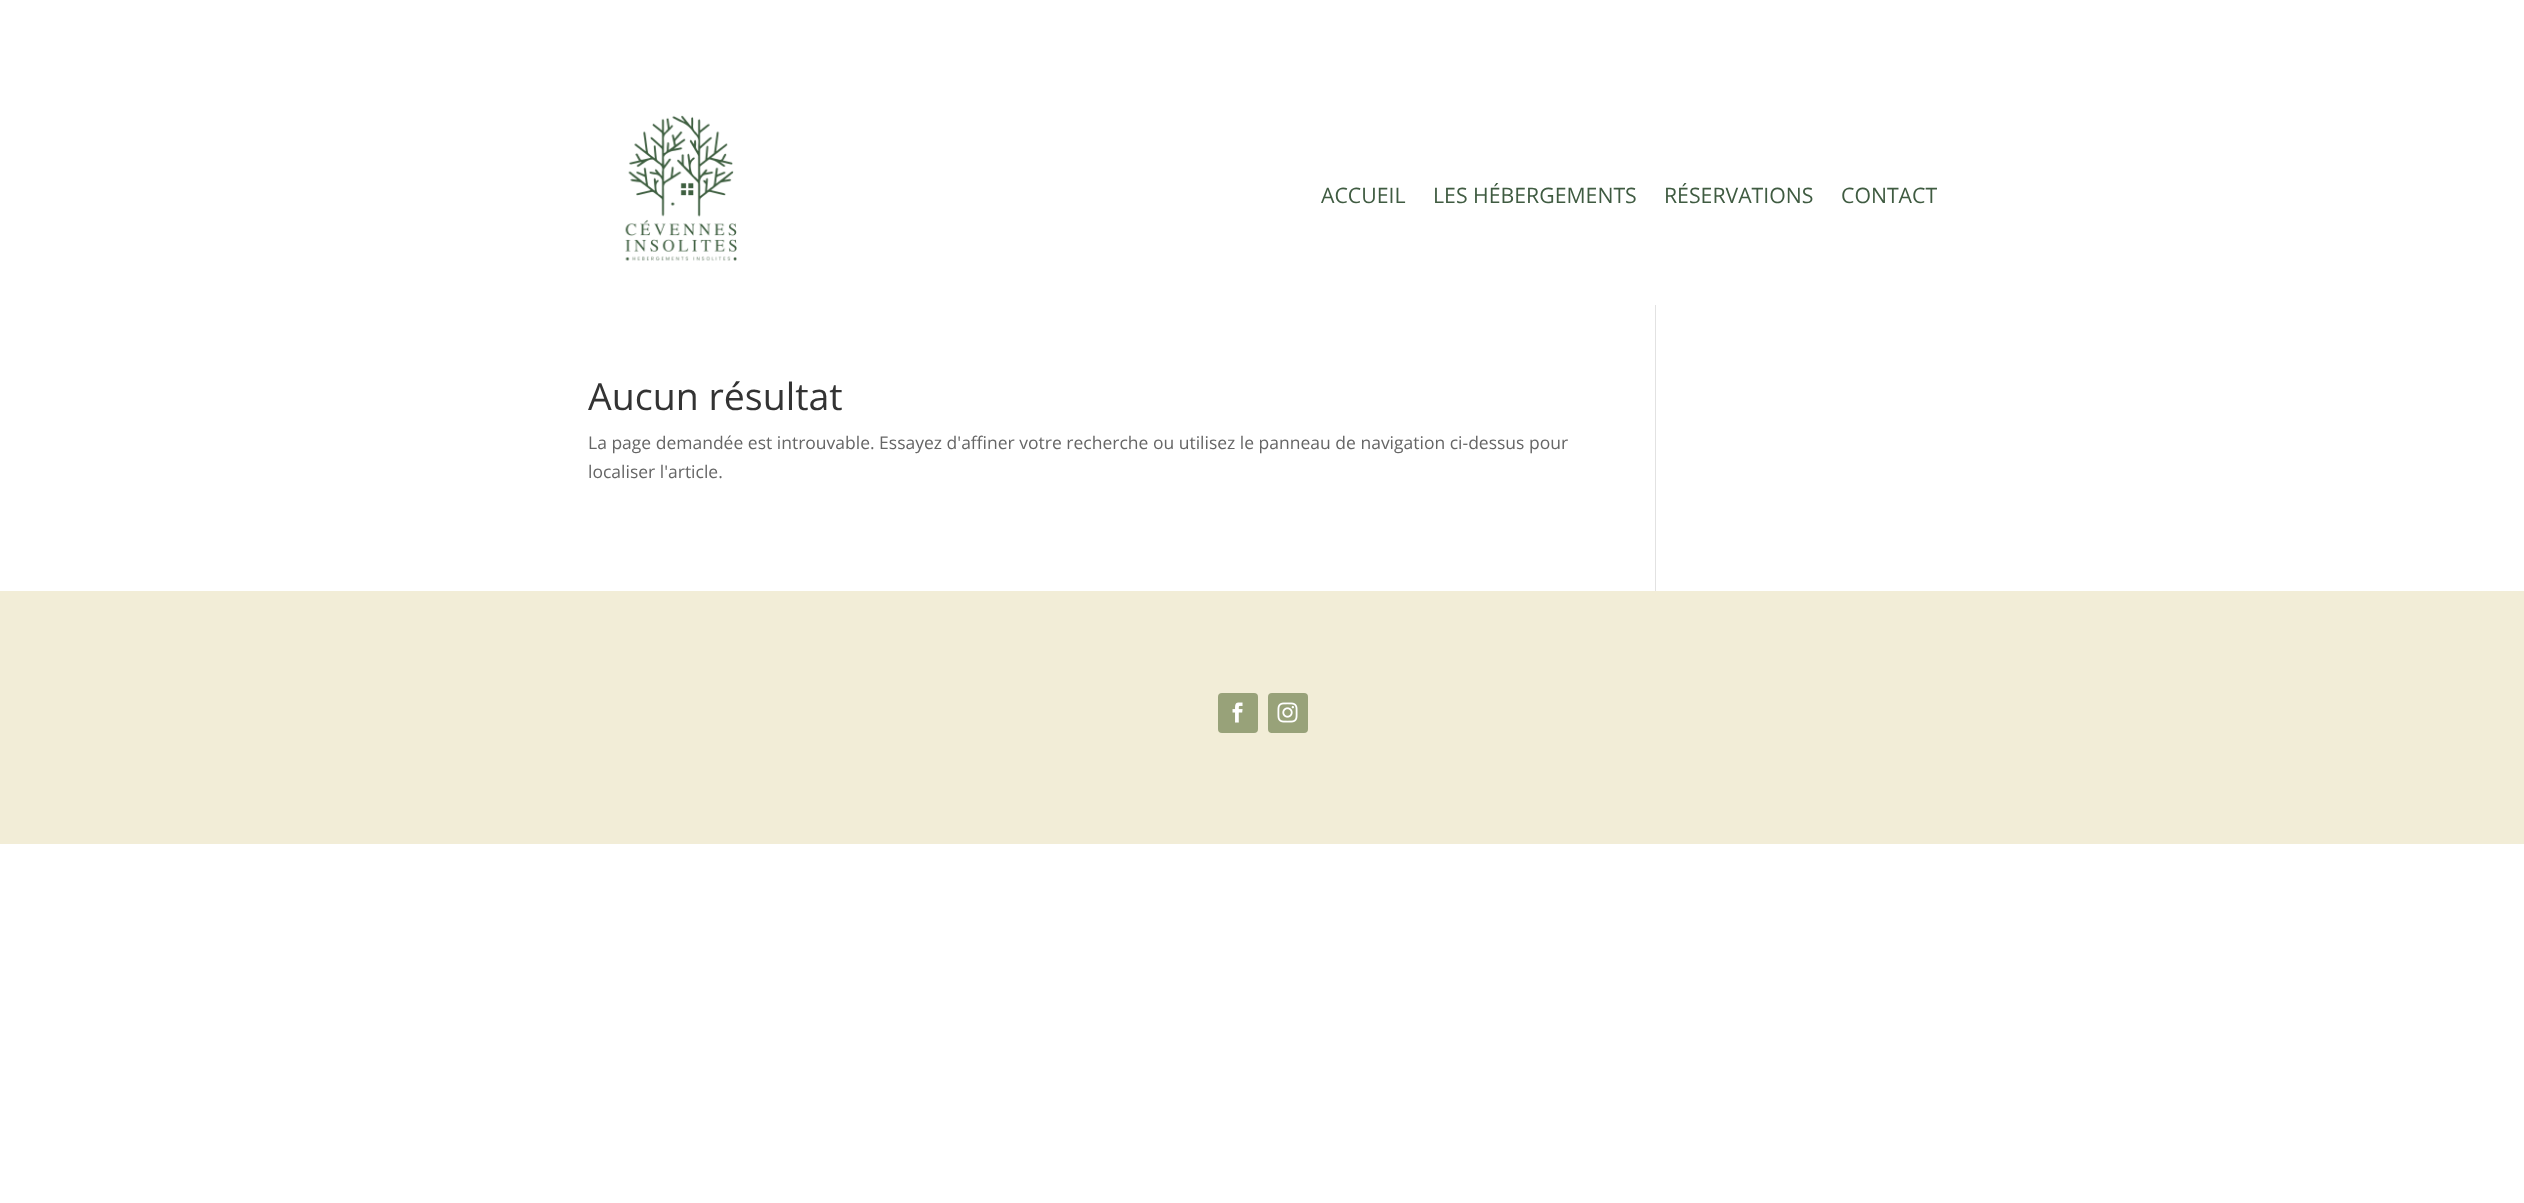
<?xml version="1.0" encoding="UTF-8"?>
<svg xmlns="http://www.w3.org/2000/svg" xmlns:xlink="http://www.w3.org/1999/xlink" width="2524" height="1203">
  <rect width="100%" height="100%" fill="#ffffff" />
  <image x="625" y="115" width="112" height="146" xlink:href="image1.png" />
  <rect x="1655" y="305" width="1" height="286" fill="#e2e2e2" />
  <rect y="591" width="2524" height="253" fill="#f2edd7" />
  <rect x="1218" y="693" width="40" height="40" rx="4" fill="#98a279" />
  <image x="1232" y="702" width="11" height="21" xlink:href="image2.png" />
  <rect x="1268" y="693" width="40" height="40" rx="4" fill="#98a279" />
  <image x="1277" y="702" width="21" height="21" xlink:href="image3.png" />
  <text x="1321" y="203" style="font-family: Open Sans; font-size: 21.25px; fill: #3f5b41">ACCUEIL</text>
  <text x="1433" y="203" style="font-family: Open Sans; font-size: 21.25px; fill: #3f5b41">LES HÉBERGEMENTS</text>
  <text x="1664" y="203" style="font-family: Open Sans; font-size: 21.25px; fill: #3f5b41">RÉSERVATIONS</text>
  <text x="1841" y="203" style="font-family: Open Sans; font-size: 21.25px; fill: #3f5b41">CONTACT</text>
  <text x="588" y="410" style="font-family: Open Sans; font-size: 37.5px; fill: #333333">Aucun résultat</text>
  <text x="588" y="449" style="font-family: Open Sans; font-size: 17.5px; fill: #666666">La page demandée est introuvable. Essayez d'affiner votre recherche ou utilisez le panneau de navigation ci-dessus pour</text>
  <text x="588" y="478" style="font-family: Open Sans; font-size: 17.5px; fill: #666666">localiser l'article.</text>
</svg>
